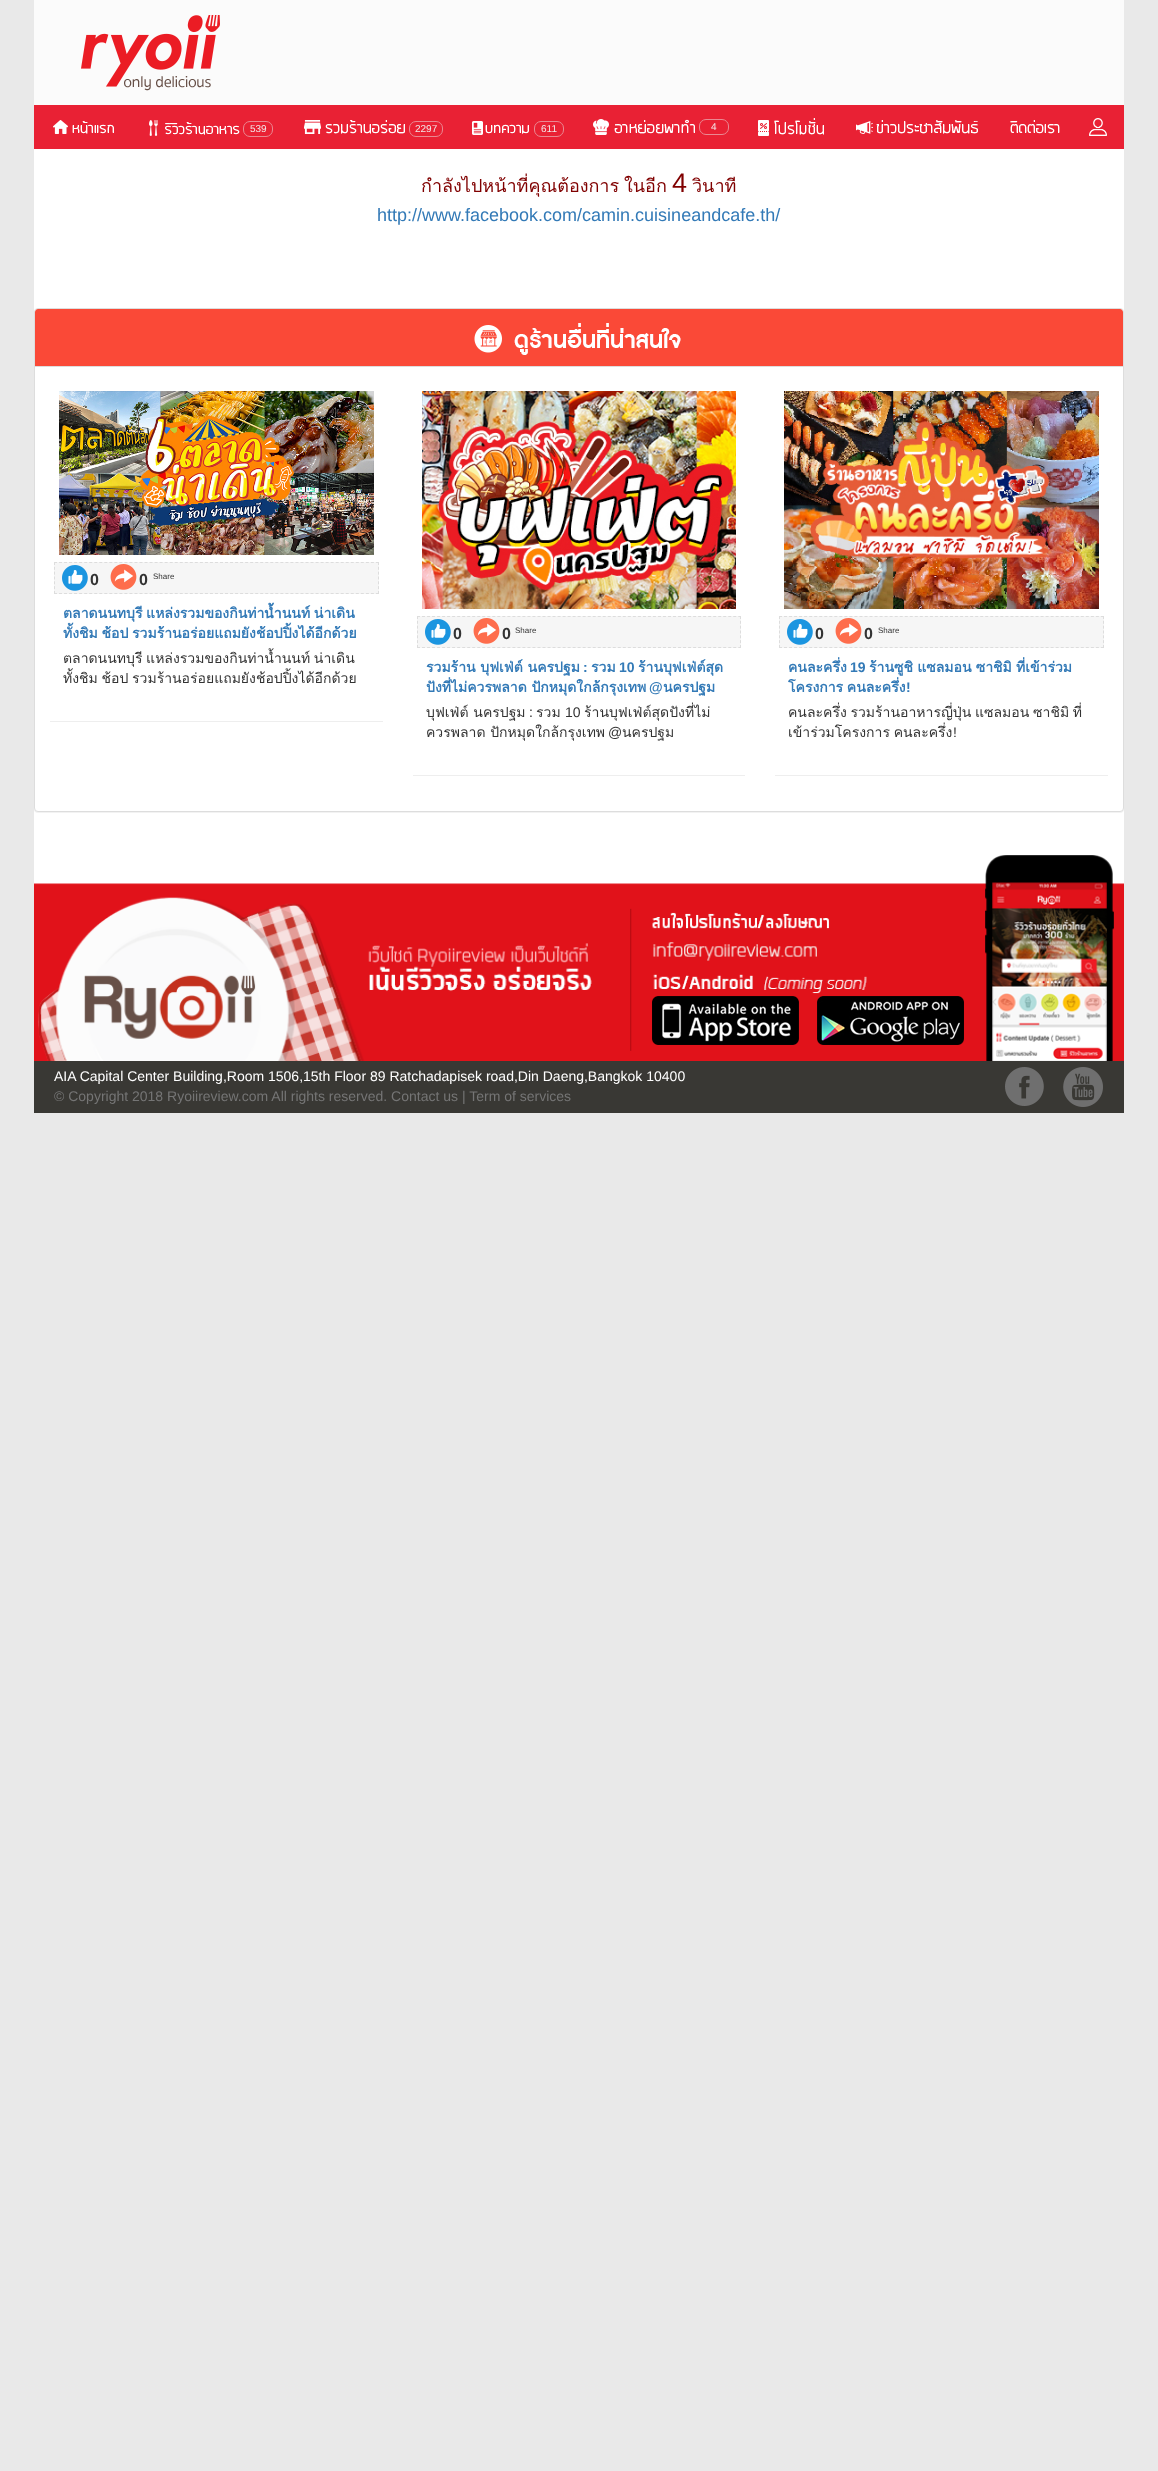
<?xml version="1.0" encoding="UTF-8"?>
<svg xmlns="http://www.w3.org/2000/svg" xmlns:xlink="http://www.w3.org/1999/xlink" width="1158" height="2471">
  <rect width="100%" height="100%" fill="#e9e9e9" />
  <rect x="34" y="149" width="1090" height="706" fill="#ffffff" />
  <rect x="34" width="1090" height="105" fill="#fbfbfb" />
  <image x="81" y="15" width="139" height="76" xlink:href="image1.png" />
  <rect x="34" y="105" width="1090" height="44" fill="#e92134" />
  <image x="53" y="120" width="61" height="14" xlink:href="image2.png" />
  <image x="149" y="120" width="91" height="16" xlink:href="image3.png" />
  <rect x="243.5" y="121.5" width="29" height="15" rx="6.5" fill="none" stroke="#ea8892" />
  <image x="304" y="120" width="101" height="14" xlink:href="image4.png" />
  <rect x="409.5" y="121.5" width="33" height="15" rx="6.5" fill="none" stroke="#ea8892" />
  <image x="472" y="121" width="57" height="14" xlink:href="image5.png" />
  <rect x="534.5" y="121.5" width="29" height="15" rx="6.5" fill="none" stroke="#ea8892" />
  <image x="593" y="119" width="102" height="16" xlink:href="image6.png" />
  <rect x="699.5" y="119.5" width="29" height="15" rx="6.5" fill="none" stroke="#ea8892" />
  <image x="758" y="118" width="66" height="18" xlink:href="image7.png" />
  <image x="856" y="120" width="122" height="14" xlink:href="image8.png" />
  <image x="1010" y="120" width="50" height="14" xlink:href="image9.png" />
  <image x="1089" y="118" width="18" height="18" xlink:href="image10.png" />
  <rect x="34" y="309" width="1090" height="504" rx="4" fill="#000000" fill-opacity="0.05" filter="blur(0.5px)" />
  <rect x="34.5" y="308.5" width="1089" height="503" rx="3.5" fill="#ffffff" stroke="#dddddd" />
  <path d="M 38 309 h 1082 c 1.5 0 3 1.5 3 3 v 55 h -1088 v -55 c 0 -1.5 1.5 -3 3 -3 z" fill="#fa4937" />
  <rect x="35" y="366" width="1088" height="1" fill="#dddddd" />
  <image x="474" y="323" width="207" height="32" xlink:href="image11.png" />
  <image x="59" y="391" width="315" height="164" xlink:href="image12.png" />
  <rect x="54" y="562" width="325" height="32" fill="#f6f6f6" />
  <path d="M 54 562.5 h 325" fill="none" stroke="#dddddd" stroke-dasharray="3 2.03" />
  <path d="M 378.5 562 v 32" fill="none" stroke="#dddddd" stroke-dasharray="3 1.83" />
  <path d="M 54 593.5 h 325" fill="none" stroke="#dddddd" stroke-dasharray="3 2.03" />
  <path d="M 54.5 562 v 32" fill="none" stroke="#dddddd" stroke-dasharray="3 1.83" />
  <image x="62" y="565" width="26" height="26" xlink:href="image13.png" />
  <image x="110" y="564" width="27" height="26" xlink:href="image14.png" />
  <rect x="50" y="721" width="333" height="1" fill="#eeeeee" />
  <image x="422" y="391" width="314" height="218" xlink:href="image15.png" />
  <rect x="417" y="616" width="324" height="32" fill="#f6f6f6" />
  <path d="M 417 616.5 h 324" fill="none" stroke="#dddddd" stroke-dasharray="3 2.02" />
  <path d="M 740.5 616 v 32" fill="none" stroke="#dddddd" stroke-dasharray="3 1.83" />
  <path d="M 417 647.5 h 324" fill="none" stroke="#dddddd" stroke-dasharray="3 2.02" />
  <path d="M 417.5 616 v 32" fill="none" stroke="#dddddd" stroke-dasharray="3 1.83" />
  <image x="425" y="619" width="26" height="26" xlink:href="image13.png" />
  <image x="473" y="618" width="27" height="26" xlink:href="image14.png" />
  <rect x="413" y="775" width="332" height="1" fill="#eeeeee" />
  <image x="784" y="391" width="315" height="218" xlink:href="image16.png" />
  <rect x="779" y="616" width="325" height="32" fill="#f6f6f6" />
  <path d="M 779 616.5 h 325" fill="none" stroke="#dddddd" stroke-dasharray="3 2.03" />
  <path d="M 1103.5 616 v 32" fill="none" stroke="#dddddd" stroke-dasharray="3 1.83" />
  <path d="M 779 647.5 h 325" fill="none" stroke="#dddddd" stroke-dasharray="3 2.03" />
  <path d="M 779.5 616 v 32" fill="none" stroke="#dddddd" stroke-dasharray="3 1.83" />
  <image x="787" y="619" width="26" height="26" xlink:href="image13.png" />
  <image x="835" y="618" width="27" height="26" xlink:href="image14.png" />
  <rect x="775" y="775" width="333" height="1" fill="#eeeeee" />
  <image x="34" y="855" width="1090" height="206" xlink:href="image17.png" />
  <image x="652" y="996" width="147" height="49" xlink:href="image18.png" />
  <image x="817" y="996" width="147" height="49" xlink:href="image19.png" />
  <rect x="34" y="1061" width="1090" height="52" fill="#393834" />
  <image x="1005" y="1067" width="39" height="39" xlink:href="image20.png" />
  <image x="1063" y="1067" width="40" height="40" xlink:href="image21.png" />
  <text x="250" y="132" style="font-family: Liberation Sans; font-size: 10px; fill: #f3e8e9">539</text>
  <text x="415" y="132" style="font-family: Liberation Sans; font-size: 10px; fill: #f3e8e9">2297</text>
  <text x="541" y="132" style="font-family: Liberation Sans; font-size: 10px; fill: #f3e8e9">611</text>
  <text x="711" y="130" style="font-family: Liberation Sans; font-size: 10px; fill: #f3e8e9">4</text>
  <text x="421" y="192" style="font-family: Loma; font-size: 18px; fill: #800000">กำลังไปหน้าที่คุณต้องการ</text>
  <text x="624" y="192" style="font-family: Loma; font-size: 18px; fill: #800000">ในอีก</text>
  <text x="672" y="192" style="font-family: Liberation Sans; font-size: 27px; fill: #800000">4</text>
  <text x="692" y="192" style="font-family: Loma; font-size: 18px; fill: #800000">วินาที</text>
  <text x="377" y="221" style="font-family: Liberation Sans; font-size: 18px; fill: #337ab7">http://www.facebook.com/camin.cuisineandcafe.th/</text>
  <text x="90" y="585" style="font-family: Liberation Sans; font-size: 16px; font-weight: bold; fill: #333333">0</text>
  <text x="139" y="585" style="font-family: Liberation Sans; font-size: 16px; font-weight: bold; fill: #333333">0</text>
  <text x="153" y="579" style="font-family: Liberation Sans; font-size: 8px; fill: #333333">Share</text>
  <text x="63" y="618" word-spacing="-1" style="font-family: Loma; font-size: 14px; font-weight: bold; fill: #337ab7">ตลาดนนทบุรี แหล่งรวมของกินท่าน้ำนนท์ น่าเดิน</text>
  <text x="63" y="638" word-spacing="-1" style="font-family: Loma; font-size: 14px; font-weight: bold; fill: #337ab7">ทั้งชิม ช้อป รวมร้านอร่อยแถมยังช้อปปิ้งได้อีกด้วย</text>
  <text x="63" y="663" word-spacing="-1" style="font-family: Loma; font-size: 14px; fill: #333333">ตลาดนนทบุรี แหล่งรวมของกินท่าน้ำนนท์ น่าเดิน</text>
  <text x="63" y="683" word-spacing="-1" style="font-family: Loma; font-size: 14px; fill: #333333">ทั้งชิม ช้อป รวมร้านอร่อยแถมยังช้อปปิ้งได้อีกด้วย</text>
  <text x="453" y="639" style="font-family: Liberation Sans; font-size: 16px; font-weight: bold; fill: #333333">0</text>
  <text x="502" y="639" style="font-family: Liberation Sans; font-size: 16px; font-weight: bold; fill: #333333">0</text>
  <text x="515" y="633" style="font-family: Liberation Sans; font-size: 8px; fill: #333333">Share</text>
  <text x="426" y="672" style="font-family: Loma; font-size: 14px; font-weight: bold; fill: #337ab7">รวมร้าน บุฟเฟ่ต์ นครปฐม</text>
  <text x="583" y="672" style="font-family: Liberation Sans; font-size: 14px; font-weight: bold; fill: #337ab7">:</text>
  <text x="591" y="672" style="font-family: Loma; font-size: 14px; font-weight: bold; fill: #337ab7">รวม</text>
  <text x="619" y="672" style="font-family: Liberation Sans; font-size: 14px; font-weight: bold; fill: #337ab7">10</text>
  <text x="638" y="672" style="font-family: Loma; font-size: 14px; font-weight: bold; fill: #337ab7">ร้านบุฟเฟ่ต์สุด</text>
  <text x="426" y="692" style="font-family: Loma; font-size: 14px; font-weight: bold; fill: #337ab7">ปังที่ไม่ควรพลาด ปักหมุดใกล้กรุงเทพ</text>
  <text x="649" y="692" style="font-family: Liberation Sans; font-size: 14px; font-weight: bold; fill: #337ab7">@</text>
  <text x="663" y="692" style="font-family: Loma; font-size: 14px; font-weight: bold; fill: #337ab7">นครปฐม</text>
  <text x="426" y="717" style="font-family: Loma; font-size: 14px; fill: #333333">บุฟเฟ่ต์ นครปฐม</text>
  <text x="529" y="717" style="font-family: Liberation Sans; font-size: 14px; fill: #333333">:</text>
  <text x="536" y="717" style="font-family: Loma; font-size: 14px; fill: #333333">รวม</text>
  <text x="565" y="717" style="font-family: Liberation Sans; font-size: 14px; fill: #333333">10</text>
  <text x="584" y="717" style="font-family: Loma; font-size: 14px; fill: #333333">ร้านบุฟเฟ่ต์สุดปังที่ไม่</text>
  <text x="426" y="737" style="font-family: Loma; font-size: 14px; fill: #333333">ควรพลาด ปักหมุดใกล้กรุงเทพ</text>
  <text x="608" y="737" style="font-family: Liberation Sans; font-size: 14px; fill: #333333">@</text>
  <text x="622" y="737" style="font-family: Loma; font-size: 14px; fill: #333333">นครปฐม</text>
  <text x="815" y="639" style="font-family: Liberation Sans; font-size: 16px; font-weight: bold; fill: #333333">0</text>
  <text x="864" y="639" style="font-family: Liberation Sans; font-size: 16px; font-weight: bold; fill: #333333">0</text>
  <text x="878" y="633" style="font-family: Liberation Sans; font-size: 8px; fill: #333333">Share</text>
  <text x="788" y="672" style="font-family: Loma; font-size: 14px; font-weight: bold; fill: #337ab7">คนละครึ่ง</text>
  <text x="850" y="672" style="font-family: Liberation Sans; font-size: 14px; font-weight: bold; fill: #337ab7">19</text>
  <text x="869" y="672" word-spacing="-0.5" style="font-family: Loma; font-size: 14px; font-weight: bold; fill: #337ab7">ร้านซูชิ แซลมอน ซาชิมิ ที่เข้าร่วม</text>
  <text x="788" y="692" word-spacing="-1" style="font-family: Loma; font-size: 14px; font-weight: bold; fill: #337ab7">โครงการ คนละครึ่ง</text>
  <text x="906" y="692" style="font-family: Liberation Sans; font-size: 14px; font-weight: bold; fill: #337ab7">!</text>
  <text x="788" y="717" word-spacing="-1" style="font-family: Loma; font-size: 14px; fill: #333333">คนละครึ่ง รวมร้านอาหารญี่ปุ่น แซลมอน ซาชิมิ ที่</text>
  <text x="788" y="737" word-spacing="-1" style="font-family: Loma; font-size: 14px; fill: #333333">เข้าร่วมโครงการ คนละครึ่ง</text>
  <text x="953" y="737" style="font-family: Liberation Sans; font-size: 14px; fill: #333333">!</text>
  <text x="54" y="1081" style="font-family: Liberation Sans; font-size: 14px; fill: #ffffff">AIA Capital Center Building,Room 1506,15th Floor 89 Ratchadapisek road,Din Daeng,Bangkok 10400</text>
  <text x="54" y="1101" style="font-family: Liberation Sans; font-size: 14px; fill: #757575">© Copyright 2018 Ryoiireview.com All rights reserved. Contact us | Term of services</text>
</svg>
